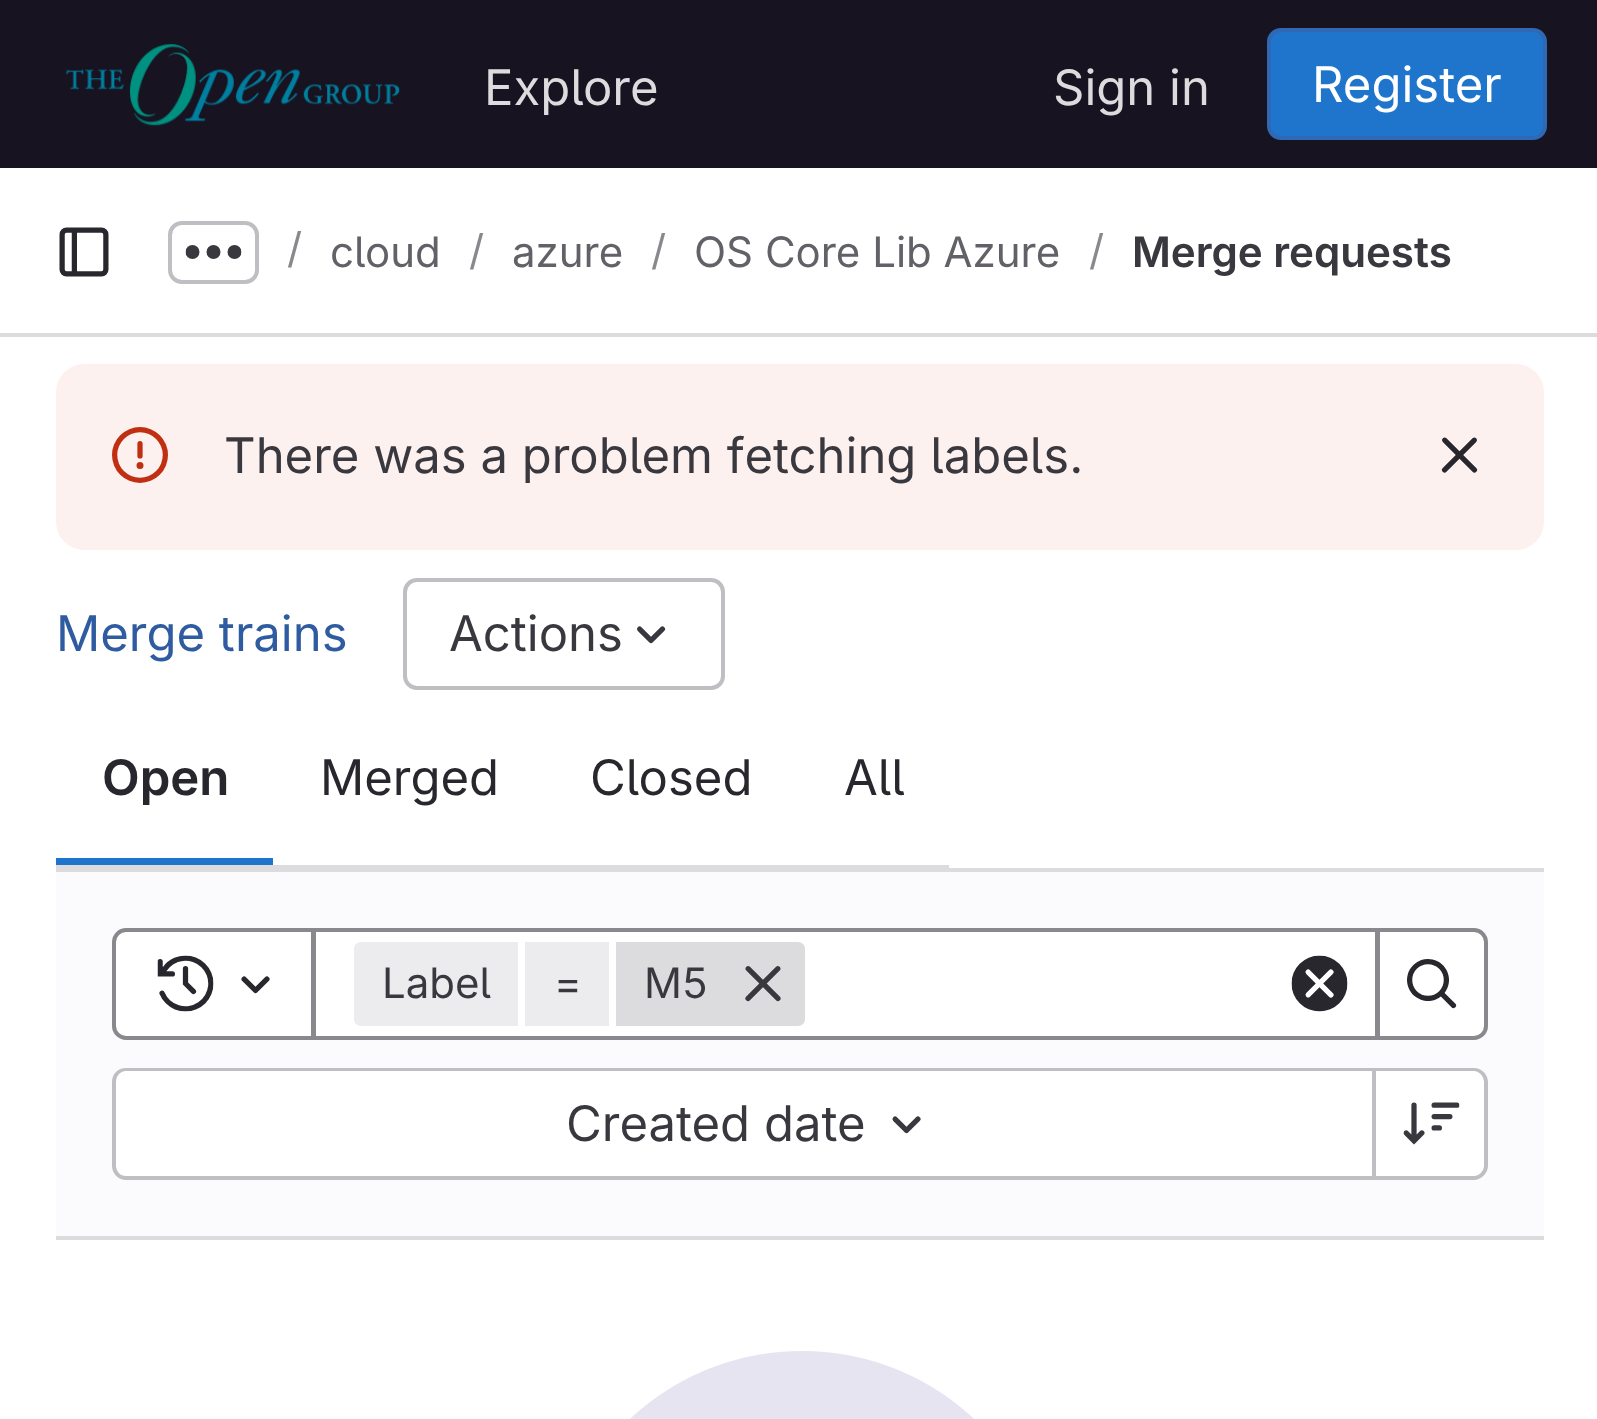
<?xml version="1.0" encoding="UTF-8"?>
<svg xmlns="http://www.w3.org/2000/svg" xmlns:xlink="http://www.w3.org/1999/xlink" width="1597" height="1419">
  <rect width="100%" height="100%" fill="#ffffff" />
  <rect width="1597" height="168" fill="#171321" />
  <image x="66" y="44" width="334" height="82" xlink:href="image1.png" />
  <rect x="1269" y="30" width="276" height="108" rx="12" fill="#1f75cb" stroke="#2f68b4" stroke-width="4" />
  <rect y="333" width="1597" height="4" fill="#dcdcde" />
  <image x="59" y="227" width="50" height="50" xlink:href="image2.png" />
  <rect x="170" y="223" width="87" height="59" rx="12" fill="none" stroke="#bfbfc3" stroke-width="4" />
  <image x="185" y="245" width="57" height="14" xlink:href="image3.png" />
  <rect x="56" y="364" width="1488" height="186" rx="28" fill="#fcf1ef" />
  <image x="112" y="427" width="56" height="56" xlink:href="image4.png" />
  <image x="1441" y="437" width="37" height="36" xlink:href="image5.png" />
  <rect x="56" y="868" width="1488" height="4" fill="#dcdcde" />
  <rect x="405" y="580" width="318" height="108" rx="12" fill="none" stroke="#bfbfc3" stroke-width="4" />
  <image x="637" y="626" width="29" height="18" xlink:href="image6.png" />
  <rect x="56" y="865" width="893" height="3" fill="#dcdcde" />
  <rect x="56" y="858" width="217" height="7" fill="#1f75cb" />
  <rect x="56" y="872" width="1488" height="364" fill="#fbfafd" />
  <rect x="56" y="1236" width="1488" height="4" fill="#dcdcde" />
  <rect x="314" y="930" width="1063" height="108" fill="#ffffff" stroke="#89888d" stroke-width="4" />
  <path d="M 126 930 h 187 v 108 h -187 c -6.5 0 -12 -5.5 -12 -12 v -84 c 0 -6.5 5.5 -12 12 -12 z" fill="#ffffff" stroke="#89888d" stroke-width="4" />
  <image x="157" y="955" width="57" height="57" xlink:href="image7.png" />
  <image x="241" y="976" width="29" height="18" xlink:href="image8.png" />
  <path d="M 361 942 h 157 v 84 h -157 c -4 0 -7 -3 -7 -7 v -70 c 0 -4 3 -7 7 -7 z" fill="#ececef" />
  <rect x="525" y="942" width="84" height="84" fill="#ececef" />
  <path d="M 616 942 h 182 c 4 0 7 3 7 7 v 70 c 0 4 -3 7 -7 7 h -182 z" fill="#dcdcde" />
  <image x="745" y="966" width="36" height="36" xlink:href="image9.png" />
  <image x="1291" y="955" width="57" height="57" xlink:href="image10.png" />
  <path d="M 1378 930 h 96 c 6.5 0 12 5.5 12 12 v 84 c 0 6.5 -5.5 12 -12 12 h -96 z" fill="#ffffff" stroke="#89888d" stroke-width="4" />
  <image x="1407" y="959" width="50" height="50" xlink:href="image11.png" />
  <path d="M 127 1071 h 1245 v 105 h -1245 c -6 0 -11 -5 -11 -11 v -83 c 0 -6 5 -11 11 -11 z" fill="#ffffff" />
  <path d="M 126 1068 h 1246 v 112 h -1246 c -8 0 -14 -7 -14 -14 v -84 c 0 -8 6 -14 14 -14 z m 0 3 h 1246 v 105 h -1246 c -6 0 -10 -5 -10 -10 v -84 c 0 -6 4 -11 10 -11 z" fill="#bfbfc3" fill-rule="evenodd" />
  <image x="892" y="1116" width="29" height="18" xlink:href="image12.png" />
  <path d="M 1376 1071 h 97 c 6 0 11 5 11 11 v 83 c 0 6 -5 11 -11 11 h -97 z" fill="#ffffff" />
  <path d="M 1376 1068 h 98 c 7 0 14 6 14 14 v 84 c 0 7 -7 14 -14 14 h -98 z m 0 3 h 98 c 5 0 10 5 10 11 v 84 c 0 5 -5 10 -10 10 h -98 z" fill="#bfbfc3" fill-rule="evenodd" />
  <rect x="1372" y="1068" width="4" height="112" fill="#bfbfc3" />
  <image x="1403" y="1102" width="57" height="43" xlink:href="image13.png" />
  <image x="630" y="1351" width="344" height="68" xlink:href="image14.png" />
  <text x="484" y="105" style="font-family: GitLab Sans; font-size: 49px; fill: #dcdcde">Explore</text>
  <text x="1053" y="105" style="font-family: GitLab Sans; font-size: 49px; fill: #dcdcde">Sign in</text>
  <text x="1312" y="102" style="font-family: GitLab Sans; font-size: 49px; fill: #ffffff">Register</text>
  <text x="287" y="263" style="font-family: GitLab Sans; font-size: 42px; fill: #89888d">/</text>
  <text x="330" y="267" style="font-family: GitLab Sans; font-size: 42px; fill: #626168">cloud</text>
  <text x="469" y="265" style="font-family: GitLab Sans; font-size: 42px; fill: #89888d">/</text>
  <text x="512" y="267" style="font-family: GitLab Sans; font-size: 42px; fill: #626168">azure</text>
  <text x="651" y="265" style="font-family: GitLab Sans; font-size: 42px; fill: #89888d">/</text>
  <text x="694" y="267" style="font-family: GitLab Sans; font-size: 42px; fill: #626168">OS Core Lib Azure</text>
  <text x="1089" y="265" style="font-family: GitLab Sans; font-size: 42px; fill: #89888d">/</text>
  <text x="1132" y="267" style="font-family: GitLab Sans; font-size: 42px; font-weight: 600; fill: #3a383f">Merge requests</text>
  <text x="224" y="473" style="font-family: GitLab Sans; font-size: 49px; fill: #3a383f">There was a problem fetching labels.</text>
  <text x="56" y="651" style="font-family: GitLab Sans; font-size: 49px; fill: #2f5ca0">Merge trains</text>
  <text x="449" y="651" style="font-family: GitLab Sans; font-size: 49px; fill: #3a383f">Actions</text>
  <text x="102" y="795" style="font-family: GitLab Sans; font-size: 49px; font-weight: 600; fill: #28272d">Open</text>
  <text x="320" y="795" style="font-family: GitLab Sans; font-size: 49px; fill: #28272d">Merged</text>
  <text x="590" y="795" style="font-family: GitLab Sans; font-size: 49px; fill: #28272d">Closed</text>
  <text x="844" y="795" style="font-family: GitLab Sans; font-size: 49px; fill: #28272d">All</text>
  <text x="382" y="998" style="font-family: GitLab Sans; font-size: 42px; fill: #3a383f">Label</text>
  <text x="554" y="998" style="font-family: GitLab Sans; font-size: 42px; fill: #3a383f">=</text>
  <text x="644" y="998" style="font-family: GitLab Sans; font-size: 42px; fill: #3a383f">M5</text>
  <text x="566" y="1141" style="font-family: GitLab Sans; font-size: 49px; fill: #3a383f">Created date</text>
</svg>
